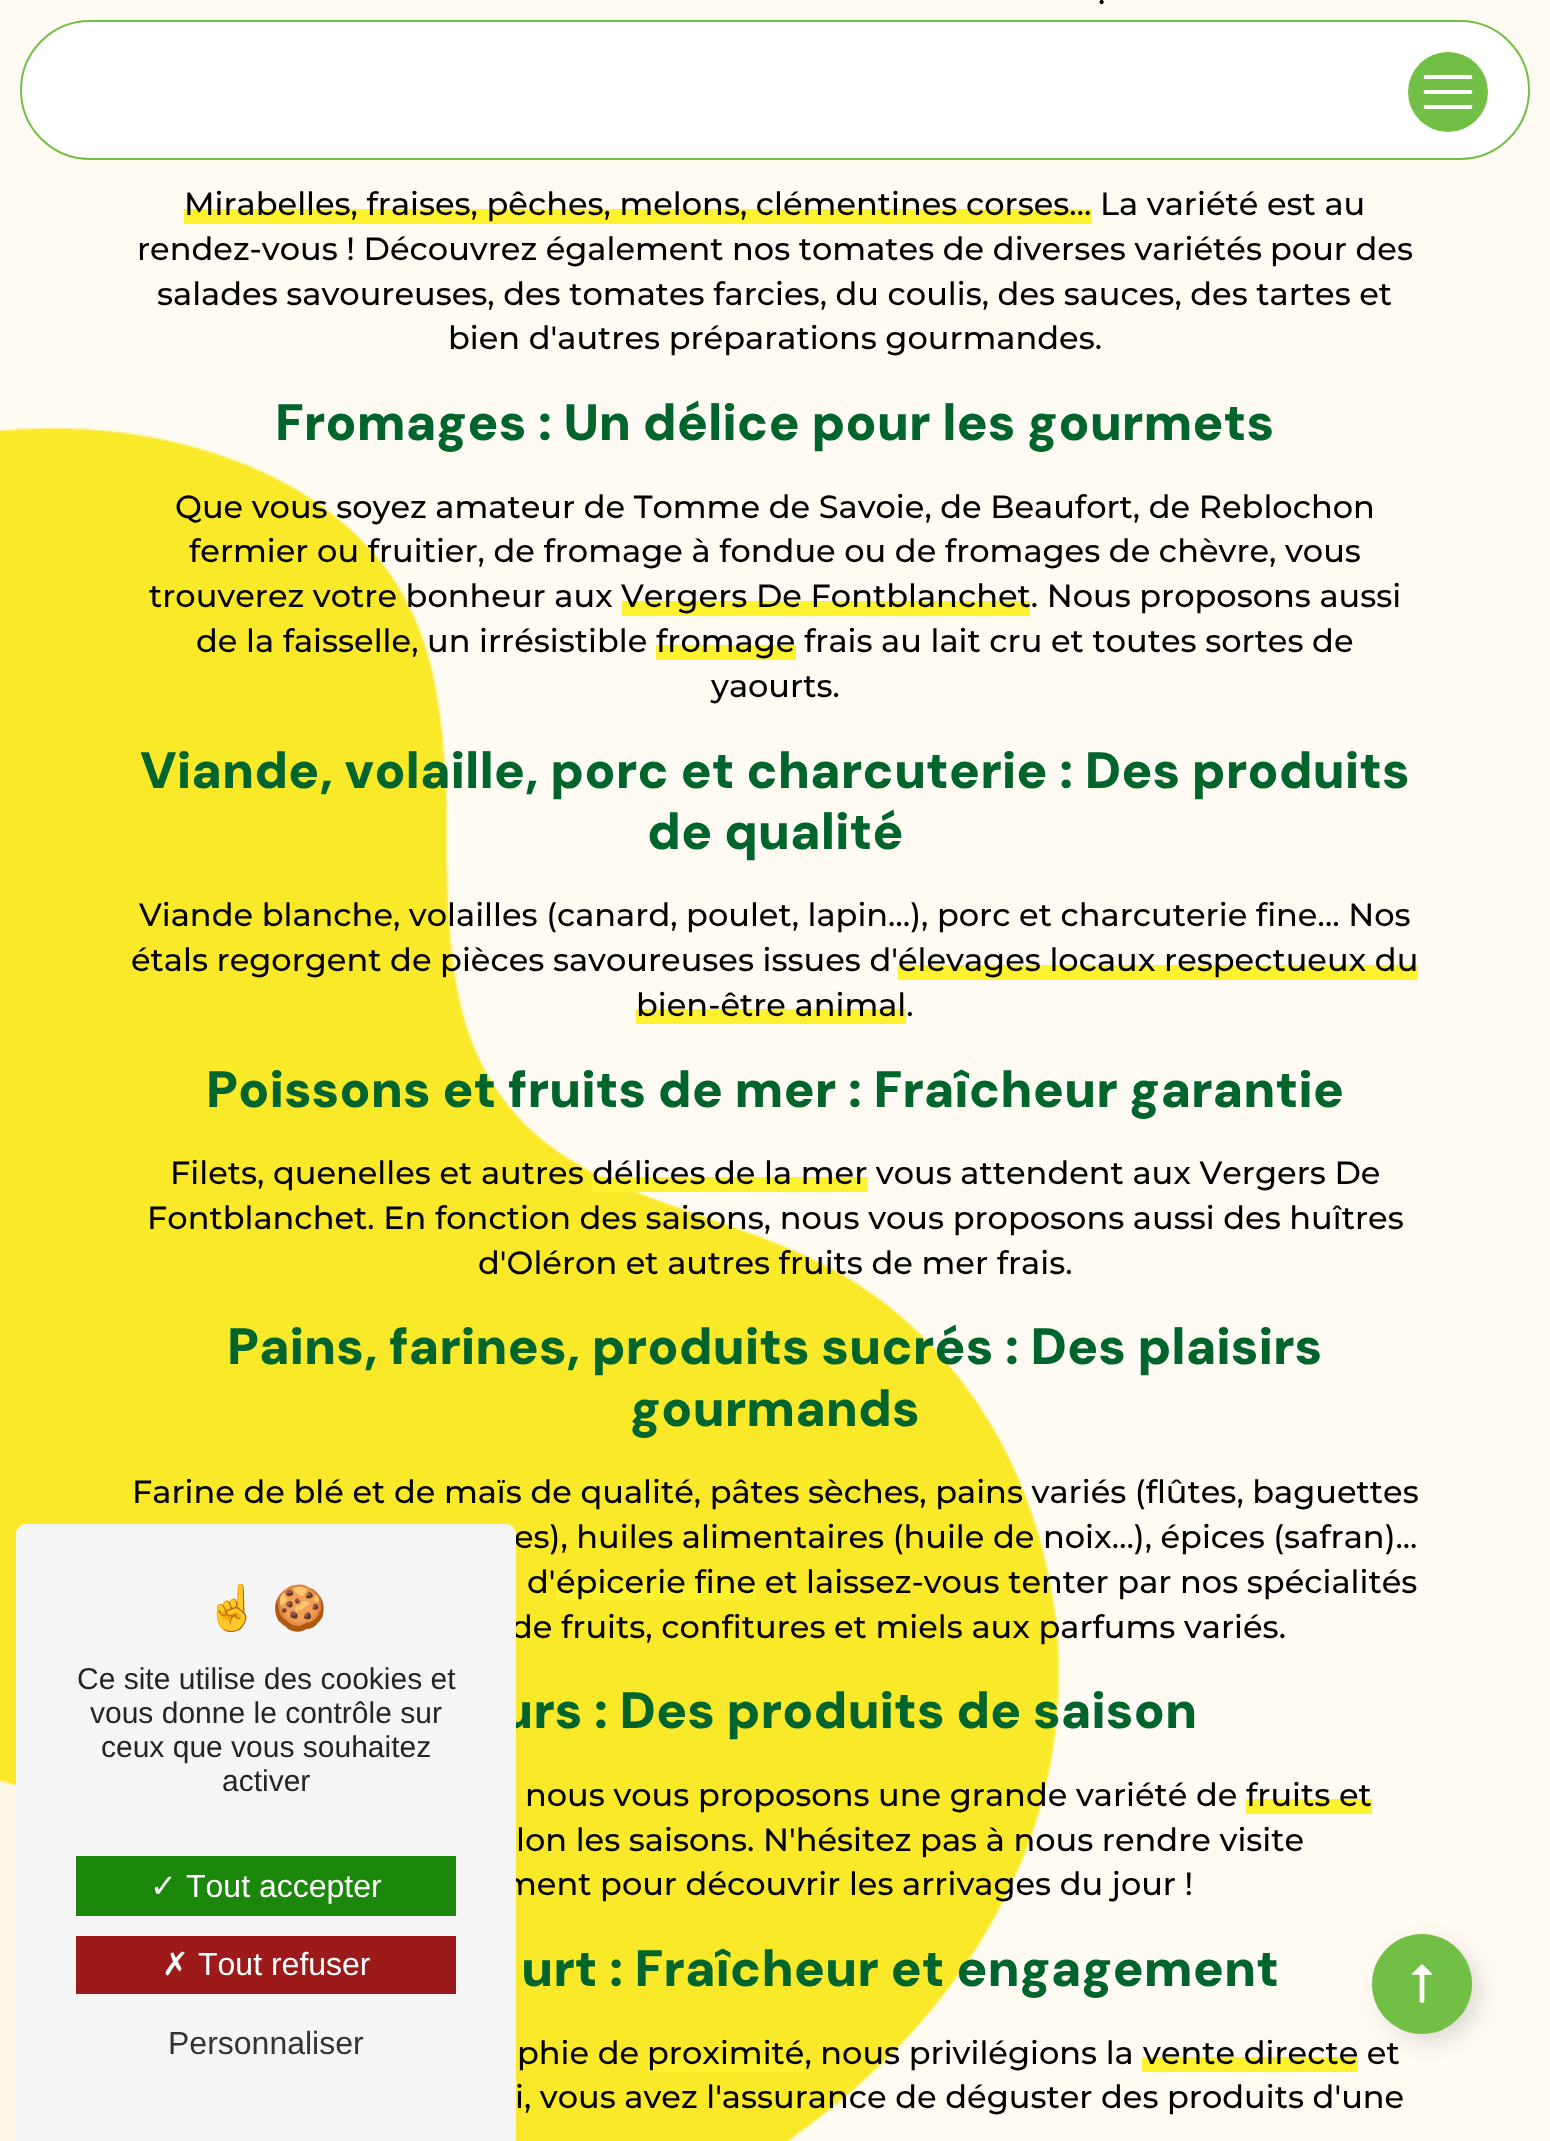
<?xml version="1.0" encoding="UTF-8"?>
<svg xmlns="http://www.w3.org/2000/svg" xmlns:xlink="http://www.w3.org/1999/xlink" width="1550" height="2141">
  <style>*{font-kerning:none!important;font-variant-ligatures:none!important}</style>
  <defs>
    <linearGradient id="g1" gradientUnits="userSpaceOnUse" x1="638" y1="186" x2="638" y2="224"><stop offset="0" stop-color="#fffbf3" /><stop offset="0.6" stop-color="#fffbf3" /><stop offset="0.6" stop-color="#fef12d" /><stop offset="1" stop-color="#fef12d" /></linearGradient>
    <linearGradient id="g2" gradientUnits="userSpaceOnUse" x1="826" y1="578" x2="826" y2="616"><stop offset="0" stop-color="#fffbf3" /><stop offset="0.6" stop-color="#fffbf3" /><stop offset="0.6" stop-color="#fef12d" /><stop offset="1" stop-color="#fef12d" /></linearGradient>
    <linearGradient id="g3" gradientUnits="userSpaceOnUse" x1="726" y1="622" x2="726" y2="660"><stop offset="0" stop-color="#fffbf3" /><stop offset="0.6" stop-color="#fffbf3" /><stop offset="0.6" stop-color="#fef12d" /><stop offset="1" stop-color="#fef12d" /></linearGradient>
    <linearGradient id="g4" gradientUnits="userSpaceOnUse" x1="1158" y1="942" x2="1158" y2="980"><stop offset="0" stop-color="#fffbf3" /><stop offset="0.6" stop-color="#fffbf3" /><stop offset="0.6" stop-color="#fef12d" /><stop offset="1" stop-color="#fef12d" /></linearGradient>
    <linearGradient id="g5" gradientUnits="userSpaceOnUse" x1="771" y1="986" x2="771" y2="1024"><stop offset="0" stop-color="#fffbf3" /><stop offset="0.6" stop-color="#fffbf3" /><stop offset="0.6" stop-color="#fef12d" /><stop offset="1" stop-color="#fef12d" /></linearGradient>
    <linearGradient id="g6" gradientUnits="userSpaceOnUse" x1="656" y1="1562" x2="656" y2="1600"><stop offset="0" stop-color="#f9e928" /><stop offset="0.6" stop-color="#f9e928" /><stop offset="0.6" stop-color="#fef12d" /><stop offset="1" stop-color="#fef12d" /></linearGradient>
    <linearGradient id="g7" gradientUnits="userSpaceOnUse" x1="1309" y1="1776" x2="1309" y2="1814"><stop offset="0" stop-color="#fffbf3" /><stop offset="0.6" stop-color="#fffbf3" /><stop offset="0.6" stop-color="#fef12d" /><stop offset="1" stop-color="#fef12d" /></linearGradient>
    <linearGradient id="g8" gradientUnits="userSpaceOnUse" x1="726" y1="2034" x2="726" y2="2072"><stop offset="0" stop-color="#f9e928" /><stop offset="0.6" stop-color="#f9e928" /><stop offset="0.6" stop-color="#fef12d" /><stop offset="1" stop-color="#fef12d" /></linearGradient>
    <linearGradient id="g9" gradientUnits="userSpaceOnUse" x1="1250" y1="2034" x2="1250" y2="2072"><stop offset="0" stop-color="#fffbf3" /><stop offset="0.6" stop-color="#fffbf3" /><stop offset="0.6" stop-color="#fef12d" /><stop offset="1" stop-color="#fef12d" /></linearGradient>
  </defs>
  <rect width="100%" height="100%" fill="#ffffff" />
  <image x="0" y="0" width="1550" height="2141" xlink:href="image1.png" />
  <rect x="184" y="209" width="908" height="15" fill="url(#g1)" />
  <rect x="622" y="601" width="408" height="15" fill="url(#g2)" />
  <rect x="656" y="645" width="140" height="15" fill="url(#g3)" />
  <rect x="898" y="965" width="520" height="15" fill="url(#g4)" />
  <rect x="636" y="1009" width="270" height="15" fill="url(#g5)" />
  <rect x="556" y="1585" width="200" height="15" fill="url(#g6)" />
  <rect x="1246" y="1799" width="126" height="15" fill="url(#g7)" />
  <rect x="648" y="2057" width="156" height="15" fill="url(#g8)" />
  <rect x="1142" y="2057" width="216" height="15" fill="url(#g9)" />
  <rect x="21" y="21" width="1508" height="138" rx="69" fill="#ffffff" stroke="#72bf46" stroke-width="2" />
  <circle cx="1448" cy="92" r="40" fill="#72bf46" />
  <path d="M 1425.5 77 h 45 m -45 15 h 45 m -45 15 h 45" fill="none" stroke="#ffffff" stroke-width="3.8" stroke-linecap="round" />
  <rect x="1380" y="1942" width="100" height="100" rx="50" fill="#000000" fill-opacity="0.12" filter="blur(10px)" />
  <circle cx="1422" cy="1984" r="50" fill="#72bf46" />
  <image x="1411" y="1964" width="22" height="39" xlink:href="image2.png" />
  <text x="1098" y="4" style="font-family: Montserrat; font-size: 32px; font-weight: 500; fill: #000000">.</text>
  <text x="184" y="215" style="font-family: Montserrat; font-size: 32px; font-weight: 500; fill: #000000">Mirabelles, fraises, pêches, melons, clémentines corses… La variété est au</text>
  <text x="137" y="260" style="font-family: Montserrat; font-size: 32px; font-weight: 500; fill: #000000">rendez-vous ! Découvrez également nos tomates de diverses variétés</text>
  <text x="1270" y="260" style="font-family: Montserrat; font-size: 32px; font-weight: 500; fill: #000000">pour des</text>
  <text x="157" y="305" style="font-family: Montserrat; font-size: 32px; font-weight: 500; fill: #000000">salades savoureuses, des tomates farcies, du coulis, des sauces, des tartes et</text>
  <text x="448" y="349" style="font-family: Montserrat; font-size: 32px; font-weight: 500; fill: #000000">bien d'autres préparations gourmandes.</text>
  <text x="275" y="440" style="font-family: DM Sans; font-size: 51.2px; font-weight: 900; fill: #00652c">Fromages : Un délice pour les gourmets</text>
  <text x="175" y="518" style="font-family: Montserrat; font-size: 32px; font-weight: 500; fill: #000000">Que vous soyez amateur de Tomme de Savoie, de Beaufort, de Reblochon</text>
  <text x="189" y="562" style="font-family: Montserrat; font-size: 32px; font-weight: 500; fill: #000000">fermier ou fruitier, de fromage à fondue ou de fromages de chèvre, vous</text>
  <text x="149" y="607" style="font-family: Montserrat; font-size: 32px; font-weight: 500; fill: #000000">trouverez votre bonheur aux</text>
  <text x="621" y="607" style="font-family: Montserrat; font-size: 32px; font-weight: 500; fill: #000000">Vergers De Fontblanchet. Nous proposons aussi</text>
  <text x="196" y="652" style="font-family: Montserrat; font-size: 32px; font-weight: 500; fill: #000000">de la faisselle, un irrésistible</text>
  <text x="656" y="652" style="font-family: Montserrat; font-size: 32px; font-weight: 500; fill: #000000">fromage frais au lait cru et toutes sortes de</text>
  <text x="711" y="697" style="font-family: Montserrat; font-size: 32px; font-weight: 500; fill: #000000">yaourts.</text>
  <text x="140" y="788" style="font-family: DM Sans; font-size: 51.2px; font-weight: 900; fill: #00652c">Viande, volaille, porc et charcuterie : Des produits</text>
  <text x="647" y="849" style="font-family: DM Sans; font-size: 51.2px; font-weight: 900; fill: #00652c">de qualité</text>
  <text x="139" y="926" style="font-family: Montserrat; font-size: 32px; font-weight: 500; fill: #000000">Viande blanche, volailles (canard, poulet, lapin…), porc et charcuterie fine… Nos</text>
  <text x="131" y="971" style="font-family: Montserrat; font-size: 32px; font-weight: 500; fill: #000000">étals regorgent de pièces savoureuses issues d'</text>
  <text x="898" y="971" style="font-family: Montserrat; font-size: 32px; font-weight: 500; fill: #000000">élevages locaux respectueux du</text>
  <text x="636" y="1016" style="font-family: Montserrat; font-size: 32px; font-weight: 500; fill: #000000">bien-être animal.</text>
  <text x="206" y="1107" style="font-family: DM Sans; font-size: 51.2px; font-weight: 900; fill: #00652c">Poissons et fruits de mer : Fraîcheur garantie</text>
  <text x="170" y="1184" style="font-family: Montserrat; font-size: 32px; font-weight: 500; fill: #000000">Filets, quenelles et autres délices de la mer vous attendent aux Vergers De</text>
  <text x="147" y="1229" style="font-family: Montserrat; font-size: 32px; font-weight: 500; fill: #000000">Fontblanchet. En fonction des saisons, nous vous proposons aussi des huîtres</text>
  <text x="478" y="1274" style="font-family: Montserrat; font-size: 32px; font-weight: 500; fill: #000000">d'Oléron et autres fruits de mer frais.</text>
  <text x="227" y="1364" style="font-family: DM Sans; font-size: 51.2px; font-weight: 900; fill: #00652c">Pains, farines, produits sucrés : Des plaisirs</text>
  <text x="630" y="1426" style="font-family: DM Sans; font-size: 51.2px; font-weight: 900; fill: #00652c">gourmands</text>
  <text x="132" y="1503" style="font-family: Montserrat; font-size: 32px; font-weight: 500; fill: #000000">Farine de blé et de maïs de qualité, pâtes sèches, pains variés (flûtes, baguettes</text>
  <text x="514" y="1548" style="font-family: Montserrat; font-size: 32px; font-weight: 500; fill: #000000">es), huiles alimentaires (huile de noix…), épices (safran)...</text>
  <text x="527" y="1593" style="font-family: Montserrat; font-size: 32px; font-weight: 500; fill: #000000">d'</text>
  <text x="556" y="1593" style="font-family: Montserrat; font-size: 32px; font-weight: 500; fill: #000000">épicerie fine et laissez-vous tenter par nos spécialités</text>
  <text x="511" y="1638" style="font-family: Montserrat; font-size: 32px; font-weight: 500; fill: #000000">de fruits, confitures et miels aux parfums variés.</text>
  <text x="501" y="1728" style="font-family: DM Sans; font-size: 51.2px; font-weight: 900; fill: #00652c">urs : Des produits de saison</text>
  <text x="525" y="1806" style="font-family: Montserrat; font-size: 32px; font-weight: 500; fill: #000000">nous vous proposons une grande variété de</text>
  <text x="1246" y="1806" style="font-family: Montserrat; font-size: 32px; font-weight: 500; fill: #000000">fruits et</text>
  <text x="516" y="1851" style="font-family: Montserrat; font-size: 32px; font-weight: 500; fill: #000000">lon les saisons. N'hésitez pas à nous rendre visite</text>
  <text x="503" y="1895" style="font-family: Montserrat; font-size: 32px; font-weight: 500; fill: #000000">ment pour découvrir les arrivages du jour !</text>
  <text x="521" y="1986" style="font-family: DM Sans; font-size: 51.2px; font-weight: 900; fill: #00652c">urt : Fraîcheur et engagement</text>
  <text x="517" y="2064" style="font-family: Montserrat; font-size: 32px; font-weight: 500; fill: #000000">phie de</text>
  <text x="647" y="2064" style="font-family: Montserrat; font-size: 32px; font-weight: 500; fill: #000000">proximité, nous privilégions la</text>
  <text x="1143" y="2064" style="font-family: Montserrat; font-size: 32px; font-weight: 500; fill: #000000">vente directe et</text>
  <text x="515" y="2108" style="font-family: Montserrat; font-size: 32px; font-weight: 500; fill: #000000">i, vous avez l'assurance de déguster des produits d'une</text>
  <path d="M 26 1524 h 480 c 5.5 0 10 4.5 10 10 v 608 h -500 v -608 c 0 -5.5 4.5 -10 10 -10 z" fill="#f5f5f5" />
  <text x="205" y="1623" style="font-family: Noto Color Emoji; font-size: 44px; fill: #242424">☝</text>
  <text x="272" y="1623" style="font-family: Noto Color Emoji; font-size: 44px; fill: #242424">🍪</text>
  <text x="77" y="1689" style="font-family: Liberation Sans; font-size: 30px; fill: #242424">Ce site utilise des cookies et</text>
  <text x="90" y="1723" style="font-family: Liberation Sans; font-size: 30px; fill: #242424">vous donne le contrôle sur</text>
  <text x="101" y="1757" style="font-family: Liberation Sans; font-size: 30px; fill: #242424">ceux que vous souhaitez</text>
  <text x="222" y="1791" style="font-family: Liberation Sans; font-size: 30px; fill: #242424">activer</text>
  <rect x="76" y="1856" width="380" height="60" fill="#1b870b" />
  <text x="150" y="1897" style="font-family: DejaVu Sans; font-size: 32px; fill: #ffffff">✓</text>
  <text x="186" y="1897" style="font-family: Liberation Sans; font-size: 32px; fill: #ffffff">Tout accepter</text>
  <rect x="76" y="1936" width="380" height="58" fill="#9c1a1a" />
  <text x="162" y="1975" style="font-family: DejaVu Sans; font-size: 32px; fill: #ffffff">✗</text>
  <text x="198" y="1975" style="font-family: Liberation Sans; font-size: 32px; fill: #ffffff">Tout refuser</text>
  <text x="168" y="2054" style="font-family: Liberation Sans; font-size: 32px; fill: #333333">Personnaliser</text>
</svg>
